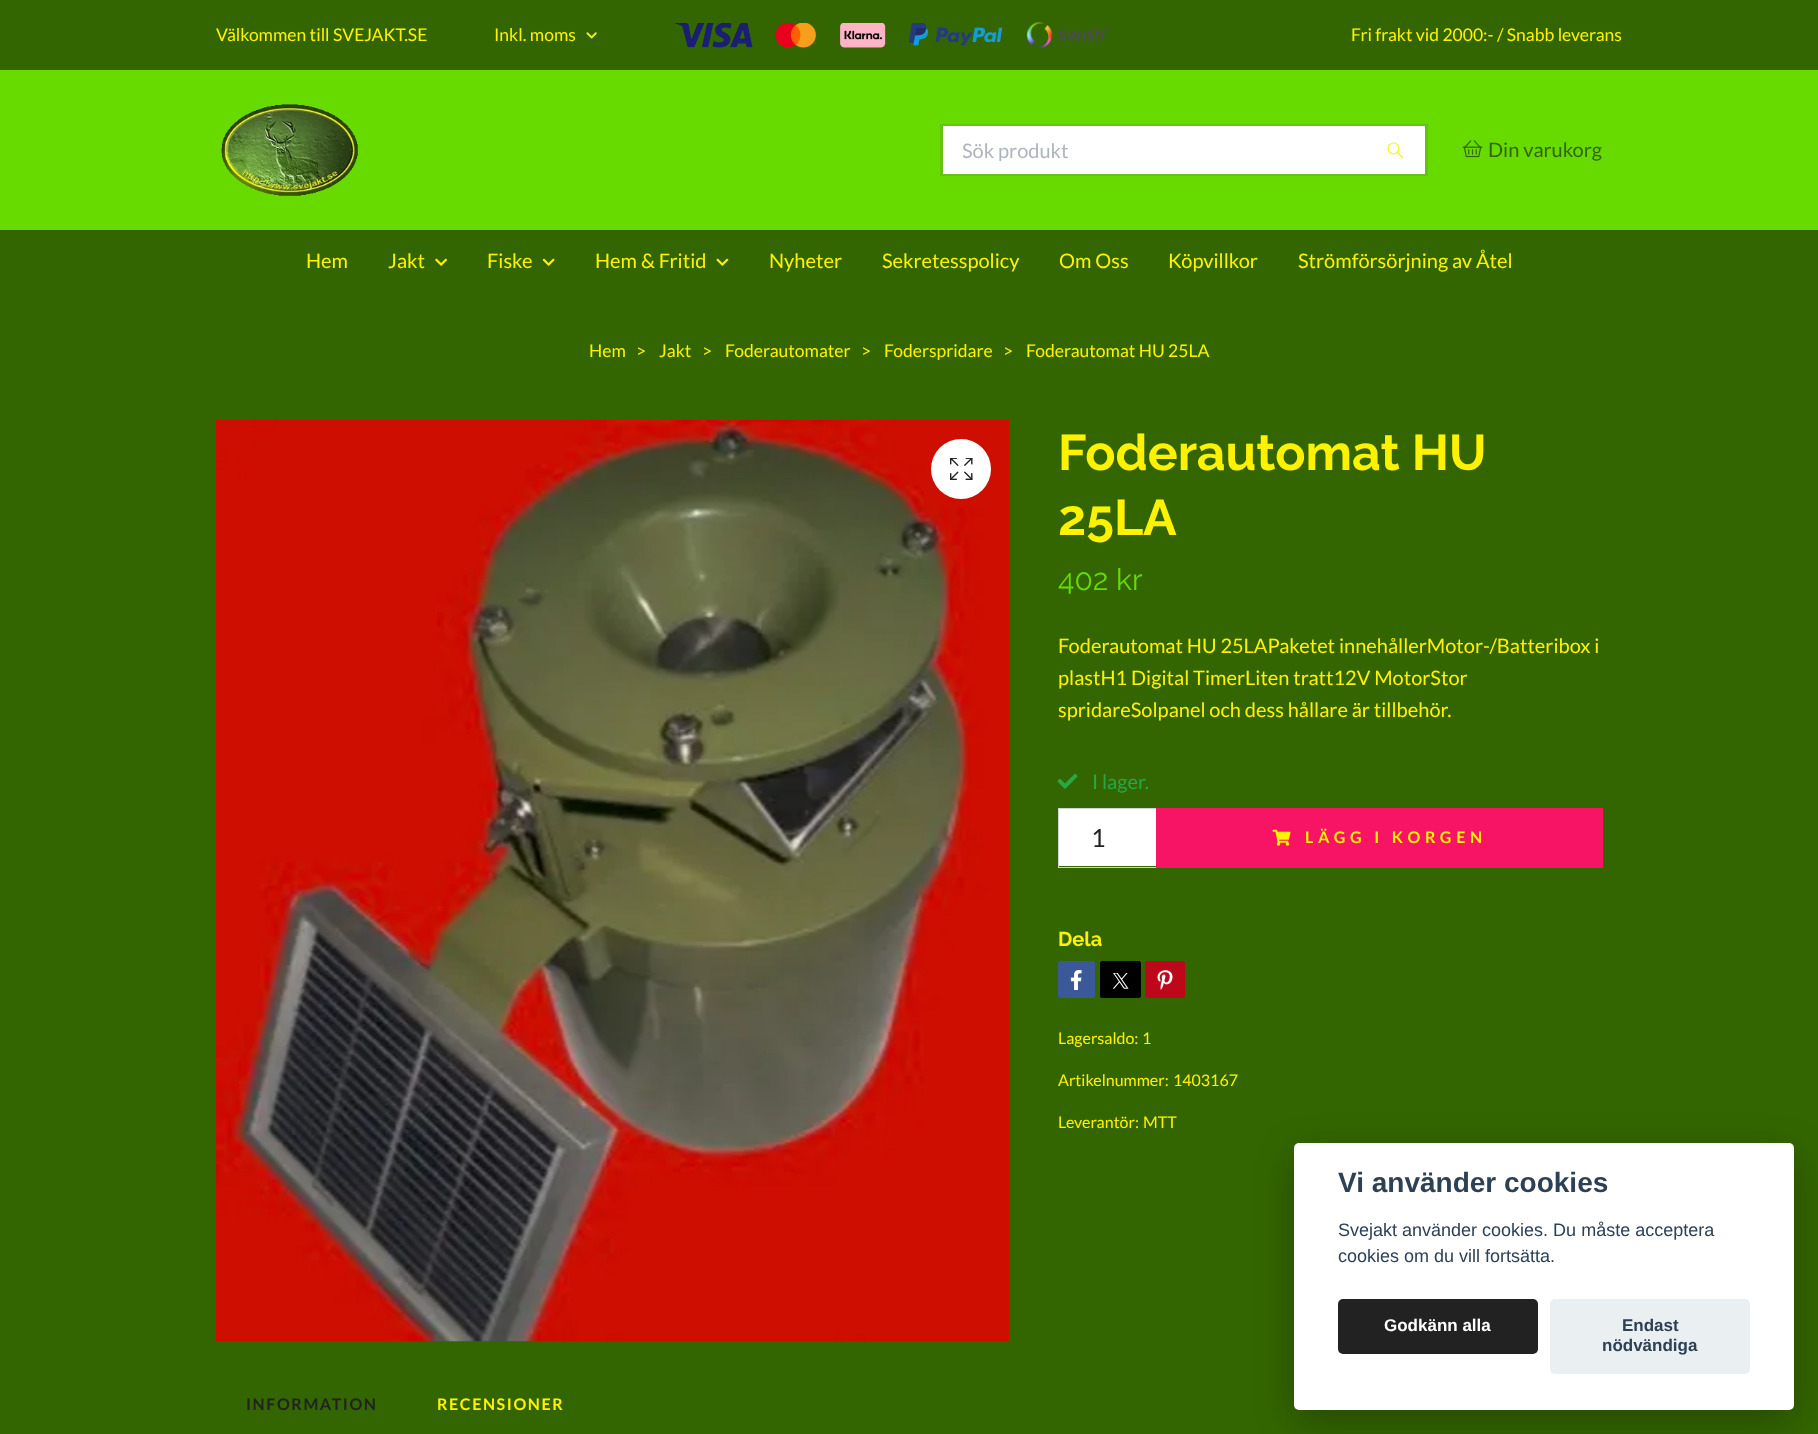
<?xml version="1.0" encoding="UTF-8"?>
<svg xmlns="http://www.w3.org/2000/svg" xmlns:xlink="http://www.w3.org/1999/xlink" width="1818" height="1434">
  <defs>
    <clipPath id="clip1"><rect x="963" y="138" width="387" height="23" /></clipPath>
  </defs>
  <rect width="100%" height="100%" fill="#336600" />
  <image x="586" y="32" width="11" height="7" xlink:href="image1.png" />
  <image x="675" y="23" width="78" height="25" xlink:href="image2.png" />
  <image x="775" y="23" width="41" height="25" xlink:href="image3.png" />
  <image x="840" y="23" width="46" height="25" xlink:href="image4.png" />
  <image x="909" y="23" width="94" height="23" xlink:href="image5.png" />
  <image x="1026" y="22" width="83" height="26" xlink:href="image6.png" />
  <rect y="70" width="1818" height="160" fill="#67db00" />
  <image x="221" y="104" width="137" height="92" xlink:href="image7.png" />
  <rect x="941.5" y="125.5" width="485" height="49" fill="none" stroke="#65c213" stroke-width="3" />
  <rect x="943" y="126" width="482" height="48" fill="#ffffff" />
  <path d="M 1397 152 l 5.5 5.5" fill="none" stroke="#fff200" stroke-width="1.2" stroke-linecap="round" stroke-linejoin="round" />
  <circle cx="1393.5" cy="148.5" r="5.5" fill="none" stroke="#fff200" stroke-width="1.2" />
  <image x="1462" y="140" width="21" height="18" xlink:href="image8.png" />
  <image x="435" y="258" width="12" height="8" xlink:href="image9.png" />
  <image x="542" y="258" width="13" height="8" xlink:href="image10.png" />
  <image x="716" y="258" width="13" height="8" xlink:href="image11.png" />
  <image x="216" y="420" width="793" height="922" xlink:href="image12.png" />
  <circle cx="961" cy="469" r="30" fill="#ffffff" />
  <image x="950" y="458" width="23" height="22" xlink:href="image13.png" />
  <image x="1057" y="773" width="21" height="16" xlink:href="image14.png" />
  <rect x="1059" y="809" width="97" height="57" fill="#ffffff" />
  <rect x="1058.5" y="808.5" width="99" height="59" fill="none" stroke="#ced4da" />
  <rect x="1156" y="808" width="447" height="60" fill="#f81464" />
  <image x="1272" y="829" width="19" height="17" xlink:href="image15.png" />
  <rect x="1058" y="961" width="37" height="37" rx="2.5" fill="#3b5998" />
  <image x="1070" y="970" width="12" height="20" xlink:href="image16.png" />
  <rect x="1100" y="961" width="41" height="37" rx="2.5" fill="#000000" />
  <rect x="1145" y="961" width="40" height="37" rx="2.5" fill="#bd081c" />
  <image x="1157" y="970" width="16" height="20" xlink:href="image17.png" />
  <image x="1113" y="973" width="16" height="16" xlink:href="image18.png" />
  <rect x="1294" y="1155" width="500" height="268" rx="5" fill="#020203" fill-opacity="0.28" filter="blur(19px)" />
  <rect x="1294" y="1143" width="500" height="267" rx="5" fill="#ffffff" />
  <rect x="1338" y="1299" width="200" height="55" rx="5" fill="#222222" />
  <rect x="1550" y="1299" width="200" height="75" rx="5" fill="#eaeff2" />
  <text x="216" y="41" style="font-family: Lato; font-size: 17.5px; fill: #fff200">Välkommen till SVEJAKT.SE</text>
  <text x="494" y="41" style="font-family: Lato; font-size: 17.5px; fill: #fff200">Inkl. moms</text>
  <text x="1351" y="41" style="font-family: Lato; font-size: 17.5px; fill: #fff200">Fri frakt vid 2000:- / Snabb leverans</text>
  <g clip-path="url(#clip1)">
    <text x="962" y="158" style="font-family: Lato; font-size: 20px; fill: #adb5bd">Sök produkt</text>
  </g>
  <text x="1488" y="157" style="font-family: Lato; font-size: 20px; fill: #336600">Din varukorg</text>
  <text x="306" y="268" style="font-family: Lato; font-size: 20px; fill: #fff200">Hem</text>
  <text x="388" y="268" style="font-family: Lato; font-size: 20px; fill: #fff200">Jakt</text>
  <text x="487" y="268" style="font-family: Lato; font-size: 20px; fill: #fff200">Fiske</text>
  <text x="595" y="268" style="font-family: Lato; font-size: 20px; fill: #fff200">Hem &amp; Fritid</text>
  <text x="769" y="268" style="font-family: Lato; font-size: 20px; fill: #fff200">Nyheter</text>
  <text x="882" y="268" style="font-family: Lato; font-size: 20px; fill: #fff200">Sekretesspolicy</text>
  <text x="1059" y="268" style="font-family: Lato; font-size: 20px; fill: #fff200">Om Oss</text>
  <text x="1168" y="268" style="font-family: Lato; font-size: 20px; fill: #fff200">Köpvillkor</text>
  <text x="1298" y="268" style="font-family: Lato; font-size: 20px; fill: #fff200">Strömförsörjning av Åtel</text>
  <text x="589" y="357" style="font-family: Lato; font-size: 17.5px; fill: #fff200">Hem</text>
  <text x="636" y="357" style="font-family: Lato; font-size: 17.5px; fill: #fff200">&gt;</text>
  <text x="659" y="357" style="font-family: Lato; font-size: 17.5px; fill: #fff200">Jakt</text>
  <text x="702" y="357" style="font-family: Lato; font-size: 17.5px; fill: #fff200">&gt;</text>
  <text x="725" y="357" style="font-family: Lato; font-size: 17.5px; fill: #fff200">Foderautomater</text>
  <text x="861" y="357" style="font-family: Lato; font-size: 17.5px; fill: #fff200">&gt;</text>
  <text x="884" y="357" style="font-family: Lato; font-size: 17.5px; fill: #fff200">Foderspridare</text>
  <text x="1003" y="357" style="font-family: Lato; font-size: 17.5px; fill: #fff200">&gt;</text>
  <text x="1026" y="357" style="font-family: Lato; font-size: 17.5px; fill: #fff200">Foderautomat HU 25LA</text>
  <text x="1058" y="470" style="font-family: Raleway; font-size: 50px; font-weight: bold; fill: #fff200">Foderautomat HU</text>
  <text x="1058" y="535" style="font-family: Raleway; font-size: 50px; font-weight: bold; fill: #fff200">25LA</text>
  <text x="1058" y="590" style="font-family: Raleway; font-size: 30px; fill: #67db00">402 kr</text>
  <text x="1058" y="653" style="font-family: Lato; font-size: 20px; fill: #fff200">Foderautomat HU 25LAPaketet innehållerMotor-/Batteribox i</text>
  <text x="1058" y="685" style="font-family: Lato; font-size: 20px; fill: #fff200">plastH1 Digital TimerLiten tratt12V MotorStor</text>
  <text x="1058" y="717" style="font-family: Lato; font-size: 20px; fill: #fff200">spridareSolpanel och dess hållare är tillbehör.</text>
  <text x="1092" y="789" style="font-family: Lato; font-size: 20px; fill: #28a745">I lager.</text>
  <text x="1091" y="847" style="font-family: Lato; font-size: 25px; fill: #222222">1</text>
  <text x="1305" y="843" style="font-family: Lato; font-size: 16px; font-weight: bold; letter-spacing: 4.75px; fill: #fff200">LÄGG I KORGEN</text>
  <text x="1058" y="946" style="font-family: Raleway; font-size: 20px; font-weight: bold; fill: #fff200">Dela</text>
  <text x="1058" y="1044" style="font-family: Lato; font-size: 16px; fill: #fff200">Lagersaldo:</text>
  <text x="1142" y="1044" style="font-family: Lato; font-size: 16px; fill: #fff200">1</text>
  <text x="1058" y="1086" style="font-family: Lato; font-size: 16px; fill: #fff200">Artikelnummer:</text>
  <text x="1173" y="1086" style="font-family: Lato; font-size: 16px; fill: #fff200">1403167</text>
  <text x="1058" y="1128" style="font-family: Lato; font-size: 16px; fill: #fff200">Leverantör:</text>
  <text x="1143" y="1128" style="font-family: Lato; font-size: 16px; fill: #fff200">MTT</text>
  <text x="246" y="1410" style="font-family: Lato; font-size: 16px; font-weight: bold; letter-spacing: 1.6px; fill: #222222">INFORMATION</text>
  <text x="437" y="1410" style="font-family: Lato; font-size: 16px; font-weight: bold; letter-spacing: 1.6px; fill: #fff200">RECENSIONER</text>
  <text x="1338" y="1192" style="font-family: Liberation Sans; font-size: 28px; font-weight: bold; fill: #2d4156">Vi använder cookies</text>
  <text x="1338" y="1236" style="font-family: Liberation Sans; font-size: 18px; fill: #2d4156">Svejakt använder cookies. Du måste acceptera</text>
  <text x="1338" y="1262" style="font-family: Liberation Sans; font-size: 18px; fill: #2d4156">cookies om du vill fortsätta.</text>
  <text x="1384" y="1331" style="font-family: Liberation Sans; font-size: 17px; font-weight: bold; fill: #ffffff">Godkänn alla</text>
  <text x="1622" y="1331" style="font-family: Liberation Sans; font-size: 17px; font-weight: bold; fill: #2d4156">Endast</text>
  <text x="1602" y="1351" style="font-family: Liberation Sans; font-size: 17px; font-weight: bold; fill: #2d4156">nödvändiga</text>
</svg>
